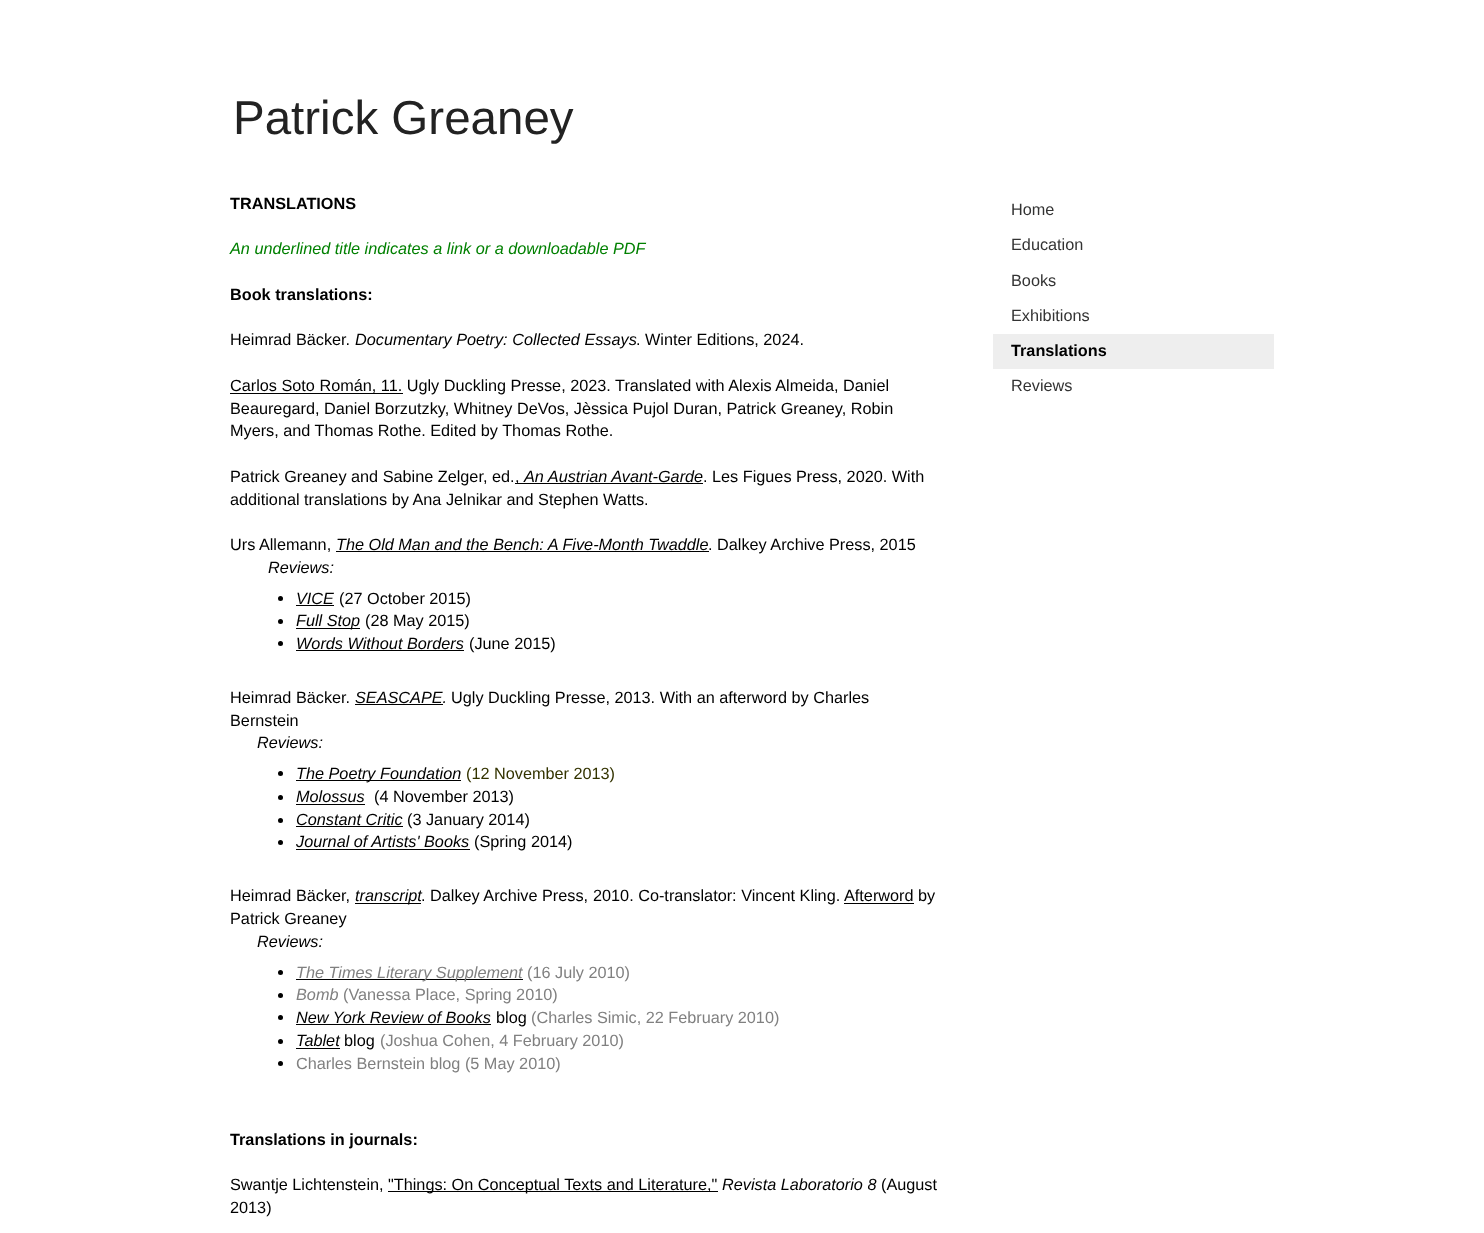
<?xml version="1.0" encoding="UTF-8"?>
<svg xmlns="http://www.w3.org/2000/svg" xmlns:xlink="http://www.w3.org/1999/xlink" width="1484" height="1233">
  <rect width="100%" height="100%" fill="#ffffff" />
  <rect x="230" y="393" width="173" height="1" fill="#000000" />
  <rect x="515" y="483" width="188" height="1" fill="#000000" />
  <rect x="336" y="551" width="373" height="1" fill="#000000" />
  <circle cx="280.5" cy="598.5" r="2.5" fill="#000000" />
  <rect x="296" y="605" width="38" height="1" fill="#000000" />
  <circle cx="280.5" cy="621.5" r="2.5" fill="#000000" />
  <rect x="296" y="628" width="64" height="1" fill="#000000" />
  <circle cx="280.5" cy="643.5" r="2.5" fill="#000000" />
  <rect x="296" y="650" width="168" height="1" fill="#000000" />
  <rect x="355" y="704" width="88" height="1" fill="#000000" />
  <circle cx="280.5" cy="773.5" r="2.5" fill="#000000" />
  <rect x="296" y="780" width="165" height="1" fill="#000000" />
  <circle cx="280.5" cy="797.5" r="2.5" fill="#000000" />
  <rect x="296" y="804" width="69" height="1" fill="#000000" />
  <circle cx="280.5" cy="820.5" r="2.5" fill="#000000" />
  <rect x="296" y="826" width="107" height="1" fill="#000000" />
  <circle cx="280.5" cy="842.5" r="2.5" fill="#000000" />
  <rect x="296" y="849" width="174" height="1" fill="#000000" />
  <rect x="355" y="903" width="66" height="1" fill="#000000" />
  <rect x="844" y="903" width="70" height="1" fill="#000000" />
  <circle cx="280.5" cy="972.5" r="2.5" fill="#000000" />
  <rect x="296" y="979" width="227" height="1" fill="#000000" />
  <circle cx="280.5" cy="995.5" r="2.5" fill="#000000" />
  <circle cx="280.5" cy="1017.5" r="2.5" fill="#000000" />
  <rect x="296" y="1024" width="195" height="1" fill="#000000" />
  <circle cx="280.5" cy="1041.5" r="2.5" fill="#000000" />
  <rect x="296" y="1048" width="44" height="1" fill="#000000" />
  <circle cx="280.5" cy="1063.5" r="2.5" fill="#000000" />
  <rect x="388" y="1191" width="330" height="1" fill="#000000" />
  <rect x="993" y="334" width="281" height="35" fill="#eeeeee" />
  <text x="233" y="134" style="font-family: Liberation Sans; font-size: 47.5px; fill: #222222">Patrick Greaney</text>
  <text x="230" y="209" style="font-family: Liberation Sans; font-size: 16.25px; font-weight: bold; fill: #000000">TRANSLATIONS</text>
  <text x="230" y="254" style="font-family: Liberation Sans; font-size: 16.25px; font-style: italic; fill: #008000">An underlined title indicates a link or a downloadable PDF</text>
  <text x="230" y="300" style="font-family: Liberation Sans; font-size: 16.25px; font-weight: bold; fill: #000000">Book translations:</text>
  <text x="230" y="345" style="font-family: Liberation Sans; font-size: 16.25px; fill: #000000">Heimrad Bäcker.</text>
  <text x="355" y="345" style="font-family: Liberation Sans; font-size: 16.25px; font-style: italic; fill: #000000">Documentary Poetry: Collected Essays</text>
  <text x="636" y="345" style="font-family: Liberation Sans; font-size: 16.25px; fill: #000000">. Winter Editions, 2024.</text>
  <text x="230" y="391" style="font-family: Liberation Sans; font-size: 16.25px; fill: #000000">Carlos Soto Román, 11. Ugly Duckling Presse, 2023. Translated with Alexis Almeida, Daniel</text>
  <text x="230" y="414" style="font-family: Liberation Sans; font-size: 16.25px; fill: #000000">Beauregard, Daniel Borzutzky, Whitney DeVos, Jèssica Pujol Duran, Patrick Greaney, Robin</text>
  <text x="230" y="436" style="font-family: Liberation Sans; font-size: 16.25px; fill: #000000">Myers, and Thomas Rothe. Edited by Thomas Rothe.</text>
  <text x="230" y="482" style="font-family: Liberation Sans; font-size: 16.25px; fill: #000000">Patrick Greaney and Sabine Zelger, ed.</text>
  <text x="515" y="482" style="font-family: Liberation Sans; font-size: 16.25px; fill: #000000">,</text>
  <text x="524" y="482" style="font-family: Liberation Sans; font-size: 16.25px; font-style: italic; fill: #000000">An Austrian Avant-Garde</text>
  <text x="703" y="482" style="font-family: Liberation Sans; font-size: 16.25px; fill: #000000">. Les Figues Press, 2020. With</text>
  <text x="230" y="505" style="font-family: Liberation Sans; font-size: 16.25px; fill: #000000">additional translations by Ana Jelnikar and Stephen Watts.</text>
  <text x="230" y="550" style="font-family: Liberation Sans; font-size: 16.25px; fill: #000000">Urs Allemann,</text>
  <text x="336" y="550" style="font-family: Liberation Sans; font-size: 16.25px; font-style: italic; fill: #000000">The Old Man and the Bench: A Five-Month Twaddle</text>
  <text x="708" y="550" style="font-family: Liberation Sans; font-size: 16.25px; fill: #000000">. Dalkey Archive Press, 2015</text>
  <text x="268" y="573" style="font-family: Liberation Sans; font-size: 16.25px; font-style: italic; fill: #000000">Reviews:</text>
  <text x="296" y="604" style="font-family: Liberation Sans; font-size: 16.25px; font-style: italic; fill: #000000">VICE</text>
  <text x="339" y="604" style="font-family: Liberation Sans; font-size: 16.25px; fill: #000000">(27 October 2015)</text>
  <text x="296" y="626" style="font-family: Liberation Sans; font-size: 16.25px; font-style: italic; fill: #000000">Full Stop</text>
  <text x="365" y="626" style="font-family: Liberation Sans; font-size: 16.25px; fill: #000000">(28 May 2015)</text>
  <text x="296" y="649" style="font-family: Liberation Sans; font-size: 16.25px; font-style: italic; fill: #000000">Words Without Borders</text>
  <text x="469" y="649" style="font-family: Liberation Sans; font-size: 16.25px; fill: #000000">(June 2015)</text>
  <text x="230" y="703" style="font-family: Liberation Sans; font-size: 16.25px; fill: #000000">Heimrad Bäcker.</text>
  <text x="355" y="703" style="font-family: Liberation Sans; font-size: 16.25px; font-style: italic; fill: #000000">SEASCAPE.</text>
  <text x="451" y="703" style="font-family: Liberation Sans; font-size: 16.25px; fill: #000000">Ugly Duckling Presse, 2013. With an afterword by Charles</text>
  <text x="230" y="726" style="font-family: Liberation Sans; font-size: 16.25px; fill: #000000">Bernstein</text>
  <text x="257" y="748" style="font-family: Liberation Sans; font-size: 16.25px; font-style: italic; fill: #000000">Reviews:</text>
  <text x="296" y="779" style="font-family: Liberation Sans; font-size: 16.25px; font-style: italic; fill: #000000">The Poetry Foundation</text>
  <text x="466" y="779" style="font-family: Liberation Sans; font-size: 16.25px; fill: #333300">(12 November 2013)</text>
  <text x="296" y="802" style="font-family: Liberation Sans; font-size: 16.25px; font-style: italic; fill: #000000">Molossus</text>
  <text x="374" y="802" style="font-family: Liberation Sans; font-size: 16.25px; fill: #000000">(4 November 2013)</text>
  <text x="296" y="825" style="font-family: Liberation Sans; font-size: 16.25px; font-style: italic; fill: #000000">Constant Critic</text>
  <text x="407" y="825" style="font-family: Liberation Sans; font-size: 16.25px; fill: #000000">(3 January 2014)</text>
  <text x="296" y="847" style="font-family: Liberation Sans; font-size: 16.25px; font-style: italic; fill: #000000">Journal of Artists' Books</text>
  <text x="474" y="847" style="font-family: Liberation Sans; font-size: 16.25px; fill: #000000">(Spring 2014)</text>
  <text x="230" y="901" style="font-family: Liberation Sans; font-size: 16.25px; fill: #000000">Heimrad Bäcker,</text>
  <text x="355" y="901" style="font-family: Liberation Sans; font-size: 16.25px; font-style: italic; fill: #000000">transcript</text>
  <text x="421" y="901" style="font-family: Liberation Sans; font-size: 16.25px; fill: #000000">. Dalkey Archive Press,</text>
  <text x="593" y="901" style="font-family: Liberation Sans; font-size: 16.25px; fill: #000000">2010. Co-translator: Vincent Kling.</text>
  <text x="844" y="901" style="font-family: Liberation Sans; font-size: 16.25px; fill: #000000">Afterword by</text>
  <text x="230" y="924" style="font-family: Liberation Sans; font-size: 16.25px; fill: #000000">Patrick Greaney</text>
  <text x="257" y="947" style="font-family: Liberation Sans; font-size: 16.25px; font-style: italic; fill: #000000">Reviews:</text>
  <text x="296" y="978" style="font-family: Liberation Sans; font-size: 16.25px; font-style: italic; fill: #808080">The Times Literary Supplement</text>
  <text x="527" y="978" style="font-family: Liberation Sans; font-size: 16.25px; fill: #808080">(16 July 2010)</text>
  <text x="296" y="1000" style="font-family: Liberation Sans; font-size: 16.25px; font-style: italic; fill: #808080">Bomb</text>
  <text x="343" y="1000" style="font-family: Liberation Sans; font-size: 16.25px; fill: #808080">(Vanessa Place, Spring 2010)</text>
  <text x="296" y="1023" style="font-family: Liberation Sans; font-size: 16.25px; font-style: italic; fill: #000000">New York Review of Books</text>
  <text x="496" y="1023" style="font-family: Liberation Sans; font-size: 16.25px; fill: #000000">blog</text>
  <text x="531" y="1023" style="font-family: Liberation Sans; font-size: 16.25px; fill: #808080">(Charles Simic, 22 February 2010)</text>
  <text x="296" y="1046" style="font-family: Liberation Sans; font-size: 16.25px; font-style: italic; fill: #000000">Tablet</text>
  <text x="344" y="1046" style="font-family: Liberation Sans; font-size: 16.25px; fill: #000000">blog</text>
  <text x="380" y="1046" style="font-family: Liberation Sans; font-size: 16.25px; fill: #808080">(Joshua Cohen, 4 February 2010)</text>
  <text x="296" y="1069" style="font-family: Liberation Sans; font-size: 16.25px; fill: #808080">Charles Bernstein blog (5 May 2010)</text>
  <text x="230" y="1145" style="font-family: Liberation Sans; font-size: 16.25px; font-weight: bold; fill: #000000">Translations in journals:</text>
  <text x="230" y="1190" style="font-family: Liberation Sans; font-size: 16.25px; fill: #000000">Swantje Lichtenstein,</text>
  <text x="388" y="1190" style="font-family: Liberation Sans; font-size: 16.25px; fill: #000000">"Things: On Conceptual Texts and Literature,"</text>
  <text x="722" y="1190" style="font-family: Liberation Sans; font-size: 16.25px; font-style: italic; fill: #000000">Revista Laboratorio 8</text>
  <text x="881" y="1190" style="font-family: Liberation Sans; font-size: 16.25px; fill: #000000">(August</text>
  <text x="230" y="1213" style="font-family: Liberation Sans; font-size: 16.25px; fill: #000000">2013)</text>
  <text x="1011" y="215" style="font-family: Liberation Sans; font-size: 16.25px; fill: #333333">Home</text>
  <text x="1011" y="250" style="font-family: Liberation Sans; font-size: 16.25px; fill: #333333">Education</text>
  <text x="1011" y="286" style="font-family: Liberation Sans; font-size: 16.25px; fill: #333333">Books</text>
  <text x="1011" y="321" style="font-family: Liberation Sans; font-size: 16.25px; fill: #333333">Exhibitions</text>
  <text x="1011" y="356" style="font-family: Liberation Sans; font-size: 16.25px; font-weight: bold; fill: #000000">Translations</text>
  <text x="1011" y="391" style="font-family: Liberation Sans; font-size: 16.25px; fill: #333333">Reviews</text>
</svg>
